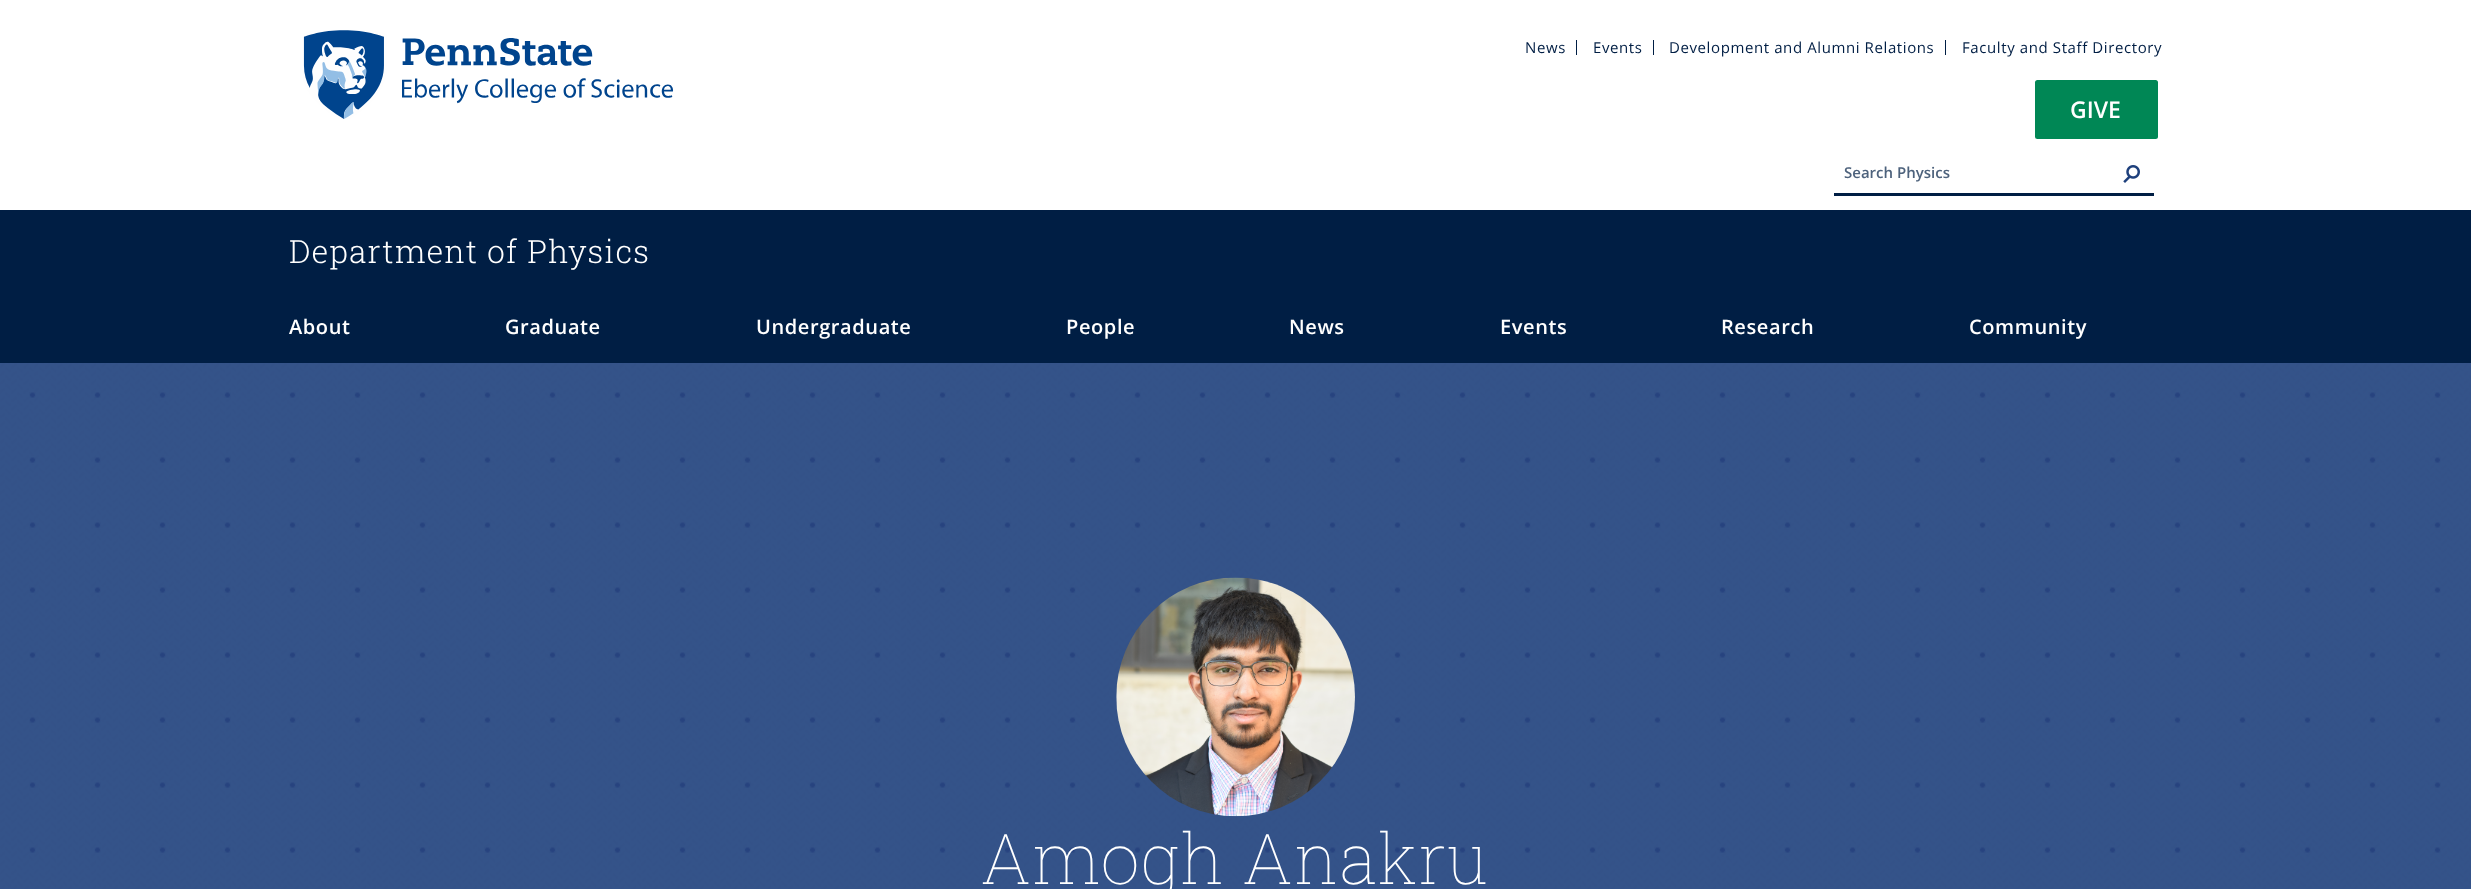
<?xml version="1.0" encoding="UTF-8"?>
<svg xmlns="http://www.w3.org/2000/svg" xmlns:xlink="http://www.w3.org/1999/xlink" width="2471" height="889">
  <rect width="100%" height="100%" fill="#ffffff" />
  <image x="303" y="30" width="371" height="89" xlink:href="image1.png" />
  <rect x="1576" y="40" width="1" height="15" fill="#001e44" />
  <rect x="1653" y="40" width="1" height="15" fill="#001e44" />
  <rect x="1945" y="40" width="1" height="15" fill="#001e44" />
  <rect x="2035" y="80" width="123" height="59" rx="2.5" fill="#008755" />
  <rect x="1834" y="193" width="320" height="3" fill="#001e44" />
  <image x="2123" y="165" width="17" height="18" xlink:href="image2.png" />
  <rect y="210" width="2471" height="153" fill="#001e44" />
  <image x="0" y="363" width="2471" height="526" xlink:href="image3.png" />
  <image x="29" y="392" width="2412" height="461" xlink:href="image4.png" />
  <image x="1116" y="577" width="239" height="240" xlink:href="image5.png" />
  <text x="1525" y="53" style="font-family: Open Sans; font-size: 15px; letter-spacing: 0.6px; fill: #001e44">News</text>
  <text x="1593" y="53" style="font-family: Open Sans; font-size: 15px; letter-spacing: 0.6px; fill: #001e44">Events</text>
  <text x="1669" y="53" style="font-family: Open Sans; font-size: 15px; letter-spacing: 0.6px; fill: #001e44">Development and Alumni Relations</text>
  <text x="1962" y="53" style="font-family: Open Sans; font-size: 15px; letter-spacing: 0.6px; fill: #001e44">Faculty and Staff Directory</text>
  <text x="2070" y="118" style="font-family: Open Sans; font-size: 23px; font-weight: 600; fill: #ffffff">GIVE</text>
  <text x="1844" y="178" style="font-family: Open Sans; font-size: 15px; font-weight: 600; fill: #4d627c">Search Physics</text>
  <text x="289" y="263" style="font-family: Roboto Slab; font-size: 32px; font-weight: 300; letter-spacing: 1.1px; fill: #ffffff">Department of Physics</text>
  <text x="289" y="334" style="font-family: Open Sans; font-size: 20px; font-weight: 600; letter-spacing: 0.6px; fill: #ffffff">About</text>
  <text x="505" y="334" style="font-family: Open Sans; font-size: 20px; font-weight: 600; letter-spacing: 0.6px; fill: #ffffff">Graduate</text>
  <text x="756" y="334" style="font-family: Open Sans; font-size: 20px; font-weight: 600; letter-spacing: 0.6px; fill: #ffffff">Undergraduate</text>
  <text x="1066" y="334" style="font-family: Open Sans; font-size: 20px; font-weight: 600; letter-spacing: 0.6px; fill: #ffffff">People</text>
  <text x="1289" y="334" style="font-family: Open Sans; font-size: 20px; font-weight: 600; letter-spacing: 0.6px; fill: #ffffff">News</text>
  <text x="1500" y="334" style="font-family: Open Sans; font-size: 20px; font-weight: 600; letter-spacing: 0.6px; fill: #ffffff">Events</text>
  <text x="1721" y="334" style="font-family: Open Sans; font-size: 20px; font-weight: 600; letter-spacing: 0.6px; fill: #ffffff">Research</text>
  <text x="1969" y="334" style="font-family: Open Sans; font-size: 20px; font-weight: 600; letter-spacing: 0.6px; fill: #ffffff">Community</text>
  <text x="981" y="884" style="font-family: Roboto Slab; font-size: 70px; font-weight: 100; letter-spacing: 0.8px; fill: #ffffff">Amogh Anakru</text>
</svg>
